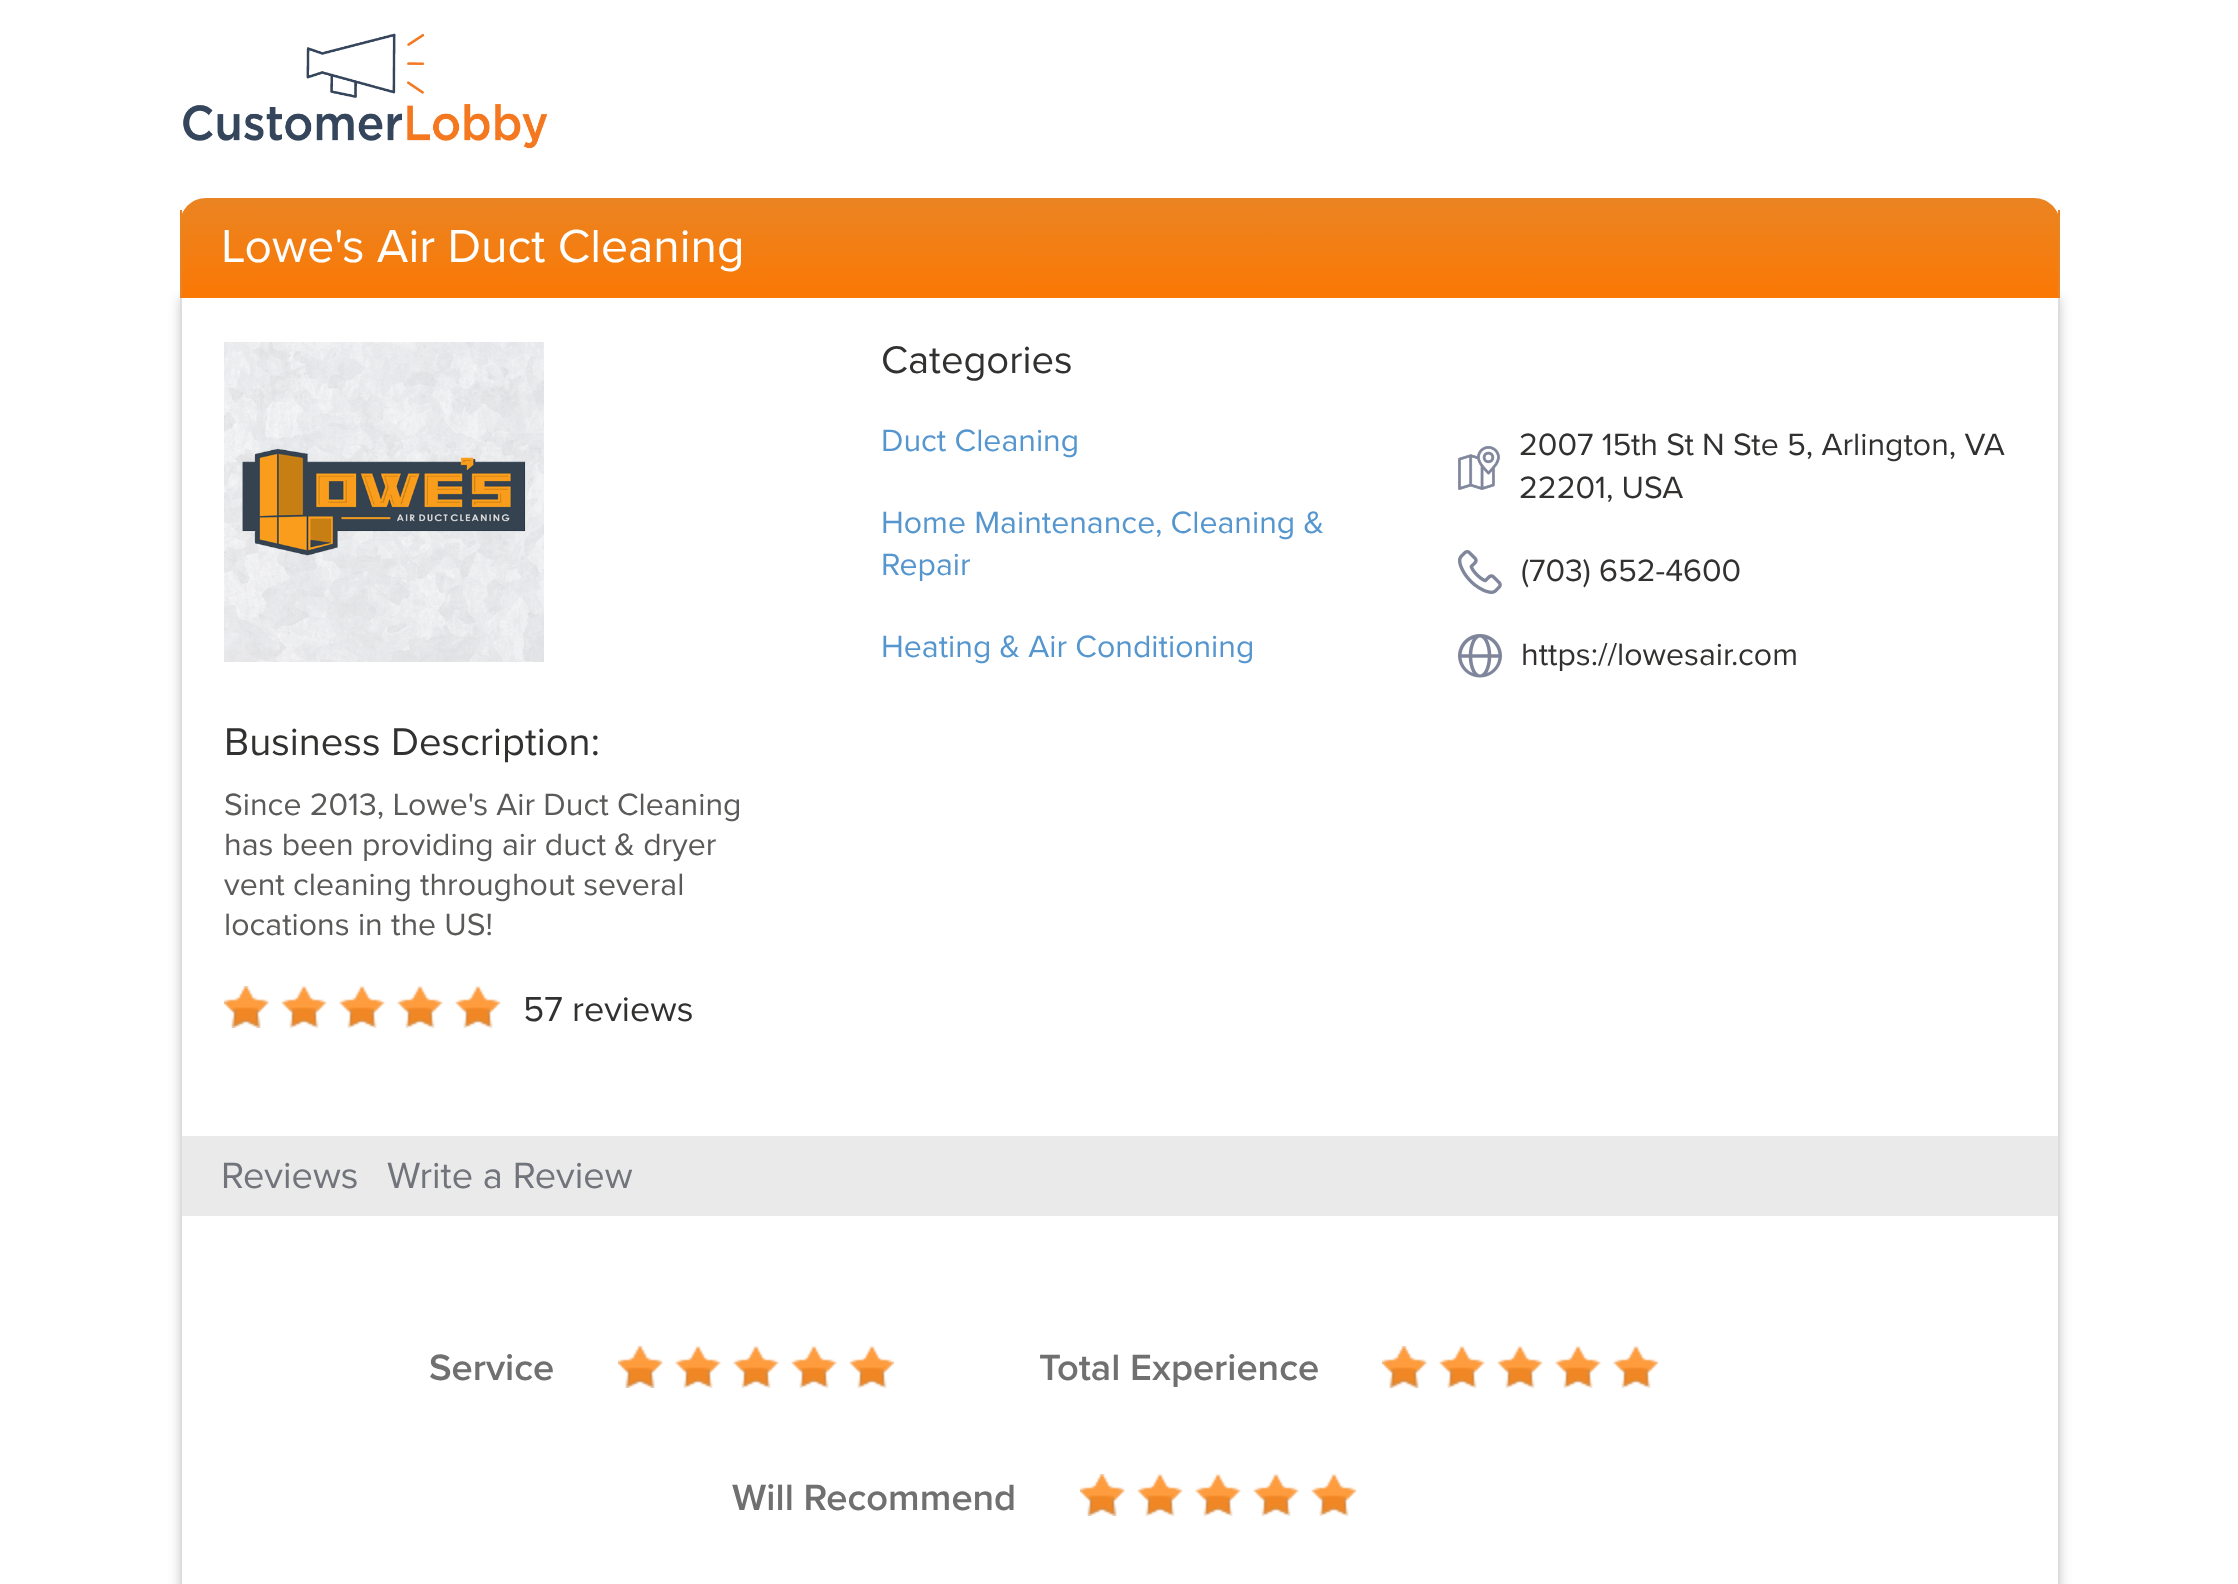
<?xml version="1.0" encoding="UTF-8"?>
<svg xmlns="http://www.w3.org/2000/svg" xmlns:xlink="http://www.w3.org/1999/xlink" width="2238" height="1584">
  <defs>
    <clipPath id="clip1"><path d="M 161 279 h 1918 v 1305 h -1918 z m 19 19 h 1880 v 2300 h -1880 z" clip-rule="evenodd" /></clipPath>
    <linearGradient id="g1" gradientUnits="userSpaceOnUse" x1="1120" y1="198" x2="1120" y2="298"><stop offset="0" stop-color="#ea8422" /><stop offset="1" stop-color="#fb7804" /></linearGradient>
  </defs>
  <rect width="100%" height="100%" fill="#ffffff" />
  <image x="183" y="33" width="364" height="116" xlink:href="image1.png" />
  <g clip-path="url(#clip1)">
    <rect x="180" y="298" width="1880" height="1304" fill="#cccccc" filter="blur(6px)" />
  </g>
  <path d="M 206 198 h 1828 c 14.5 0 26 11.5 26 26 v 74 h -1880 v -74 c 0 -14.5 11.5 -26 26 -26 z" fill="url(#g1)" />
  <rect x="2058" y="210" width="2" height="88" fill="#ea8422" />
  <rect x="180" y="210" width="2" height="88" fill="#ea8422" />
  <rect x="2058" y="298" width="2" height="1286" fill="#dddddd" />
  <rect x="180" y="298" width="2" height="1286" fill="#dddddd" />
  <image x="1458" y="446" width="42" height="44" xlink:href="image2.png" />
  <image x="1458" y="550" width="44" height="44" xlink:href="image3.png" />
  <image x="1458" y="634" width="44" height="44" xlink:href="image4.png" />
  <image x="224" y="342" width="320" height="320" xlink:href="image5.png" />
  <image x="224" y="986" width="276" height="42" xlink:href="image6.png" />
  <rect x="182" y="1136" width="1876" height="80" fill="#eaeaea" />
  <image x="618" y="1346" width="276" height="42" xlink:href="image7.png" />
  <image x="1382" y="1346" width="276" height="42" xlink:href="image7.png" />
  <image x="1080" y="1474" width="276" height="42" xlink:href="image7.png" />
  <text x="221" y="262" style="font-family: Proxima Nova; font-size: 48px; fill: #ffffff">Lowe's Air Duct Cleaning</text>
  <text x="881" y="373" style="font-family: Proxima Nova; font-size: 40px; fill: #323130">Categories</text>
  <text x="881" y="451" style="font-family: Proxima Nova; font-size: 32px; fill: #5596cf">Duct Cleaning</text>
  <text x="881" y="533" style="font-family: Proxima Nova; font-size: 32px; fill: #5596cf">Home Maintenance, Cleaning &amp;</text>
  <text x="881" y="575" style="font-family: Proxima Nova; font-size: 32px; fill: #5596cf">Repair</text>
  <text x="881" y="657" style="font-family: Proxima Nova; font-size: 32px; fill: #5596cf">Heating &amp; Air Conditioning</text>
  <text x="1519" y="455" style="font-family: Proxima Nova; font-size: 32px; fill: #323130">2007 15th St N Ste 5, Arlington, VA</text>
  <text x="1519" y="498" style="font-family: Proxima Nova; font-size: 32px; fill: #323130">22201, USA</text>
  <text x="1521" y="581" style="font-family: Proxima Nova; font-size: 32px; fill: #323130">(703) 652-4600</text>
  <text x="1521" y="665" style="font-family: Proxima Nova; font-size: 32px; fill: #323130">https://lowesair.com</text>
  <text x="224" y="755" style="font-family: Proxima Nova; font-size: 40px; fill: #323130">Business Description:</text>
  <text x="224" y="815" style="font-family: Proxima Nova; font-size: 32px; fill: #5b5a59">Since 2013, Lowe's Air Duct Cleaning</text>
  <text x="224" y="855" style="font-family: Proxima Nova; font-size: 32px; fill: #5b5a59">has been providing air duct &amp; dryer</text>
  <text x="224" y="895" style="font-family: Proxima Nova; font-size: 32px; fill: #5b5a59">vent cleaning throughout several</text>
  <text x="224" y="935" style="font-family: Proxima Nova; font-size: 32px; fill: #5b5a59">locations in the US!</text>
  <text x="523" y="1021" style="font-family: Proxima Nova; font-size: 36px; fill: #323130">57 reviews</text>
  <text x="221" y="1188" style="font-family: Proxima Nova; font-size: 38px; fill: #72747c">Reviews</text>
  <text x="387" y="1188" style="font-family: Proxima Nova; font-size: 38px; fill: #72747c">Write a Review</text>
  <text x="429" y="1380" style="font-family: Proxima Nova; font-size: 38px; font-weight: 600; fill: #707070">Service</text>
  <text x="1039" y="1380" style="font-family: Proxima Nova; font-size: 38px; font-weight: 600; fill: #707070">Total Experience</text>
  <text x="732" y="1510" style="font-family: Proxima Nova; font-size: 38px; font-weight: 600; fill: #707070">Will Recommend</text>
</svg>
